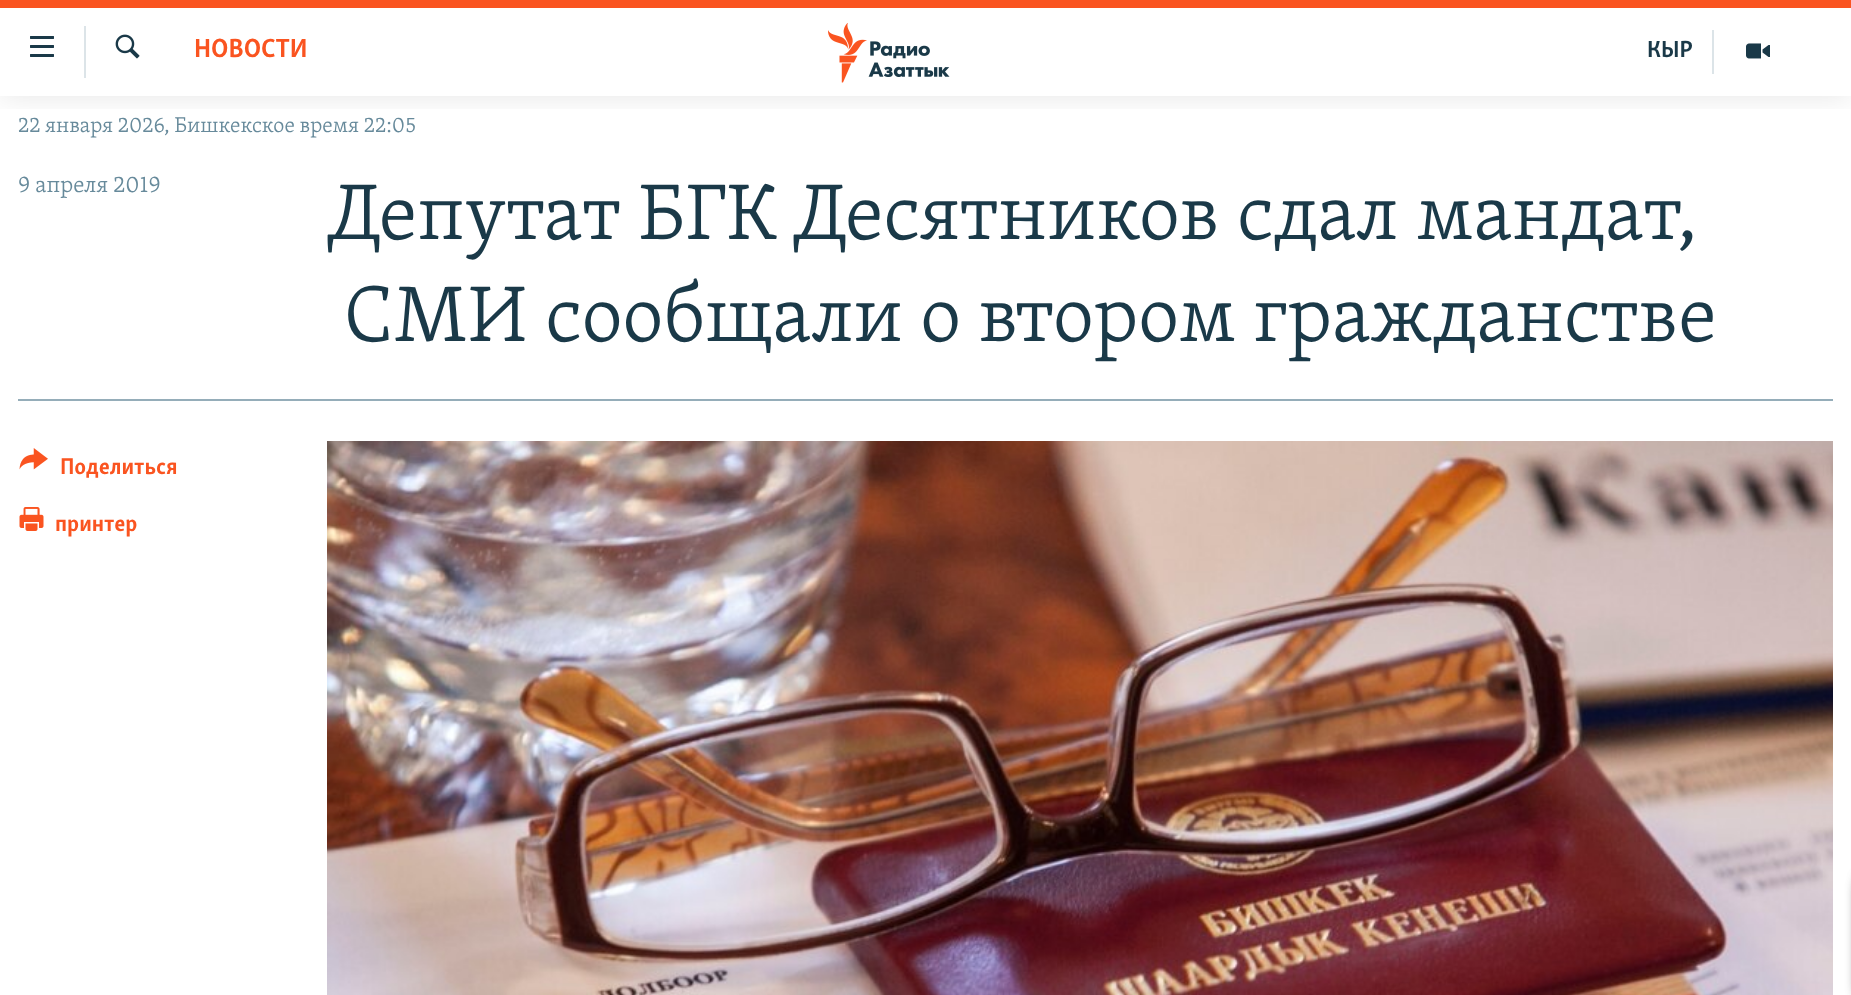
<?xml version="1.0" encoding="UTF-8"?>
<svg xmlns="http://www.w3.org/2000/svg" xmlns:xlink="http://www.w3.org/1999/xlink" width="1851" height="995">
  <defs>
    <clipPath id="clip1"><rect x="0" y="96" width="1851" height="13" /></clipPath>
  </defs>
  <rect width="100%" height="100%" fill="#ffffff" />
  <g clip-path="url(#clip1)">
    <rect width="1851" height="96" fill="#000000" fill-opacity="0.1" filter="blur(15px)" />
  </g>
  <rect width="1851" height="8" fill="#fa5420" />
  <image x="30" y="36" width="24" height="21" xlink:href="image1.png" />
  <rect x="84" y="26" width="2" height="52" fill="#dce4e8" />
  <image x="115" y="34" width="25" height="25" xlink:href="image2.png" />
  <image x="828" y="23" width="122" height="60" xlink:href="image3.png" />
  <rect x="1712" y="30" width="2" height="44" fill="#dce4e8" />
  <image x="1746" y="43" width="24" height="16" xlink:href="image4.png" />
  <rect x="18" y="399" width="1815" height="2" fill="#95adb9" />
  <image x="19" y="448" width="29" height="22" xlink:href="image5.png" />
  <image x="19" y="507" width="25" height="24" xlink:href="image6.png" />
  <image x="327" y="441" width="1506" height="554" xlink:href="image7.png" />
  <rect x="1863" y="879" width="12" height="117" rx="1.5" fill="#000000" fill-opacity="0.85" filter="blur(7.5px)" />
  <rect x="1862" y="879" width="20" height="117" rx="8" fill="#000000" fill-opacity="0.85" filter="blur(7.5px)" />
  <text x="194" y="57" style="font-family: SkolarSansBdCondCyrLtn; font-size: 27px; font-weight: bold; fill: #fa5420">НОВОСТИ</text>
  <text x="1647" y="57" style="font-family: SkolarSansBdCondCyrLtn; font-size: 24px; font-weight: bold; fill: #1a3948">КЫР</text>
  <text x="18" y="132" style="font-family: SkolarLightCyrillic; font-size: 21.9px; font-weight: 300; fill: #678a9b">22 января 2026, Бишкекское время 22:05</text>
  <text x="18" y="192" style="font-family: SkolarLightCyrillic; font-size: 23.5px; font-weight: 300; fill: #678a9b">9 апреля 2019</text>
  <text x="327" y="239" style="font-family: SkolarLightCyrillic; font-size: 81px; font-weight: 300; fill: #1a3948">Депутат БГК Десятников сдал мандат,</text>
  <text x="344" y="341" style="font-family: SkolarLightCyrillic; font-size: 81px; font-weight: 300; fill: #1a3948">СМИ сообщали о втором гражданстве</text>
  <text x="60" y="474" style="font-family: SkolarSansBdCondCyrLtn; font-size: 23.5px; font-weight: bold; fill: #fa5420">Поделиться</text>
  <text x="55" y="531" style="font-family: SkolarSansBdCondCyrLtn; font-size: 23.5px; font-weight: bold; fill: #fa5420">принтер</text>
</svg>
